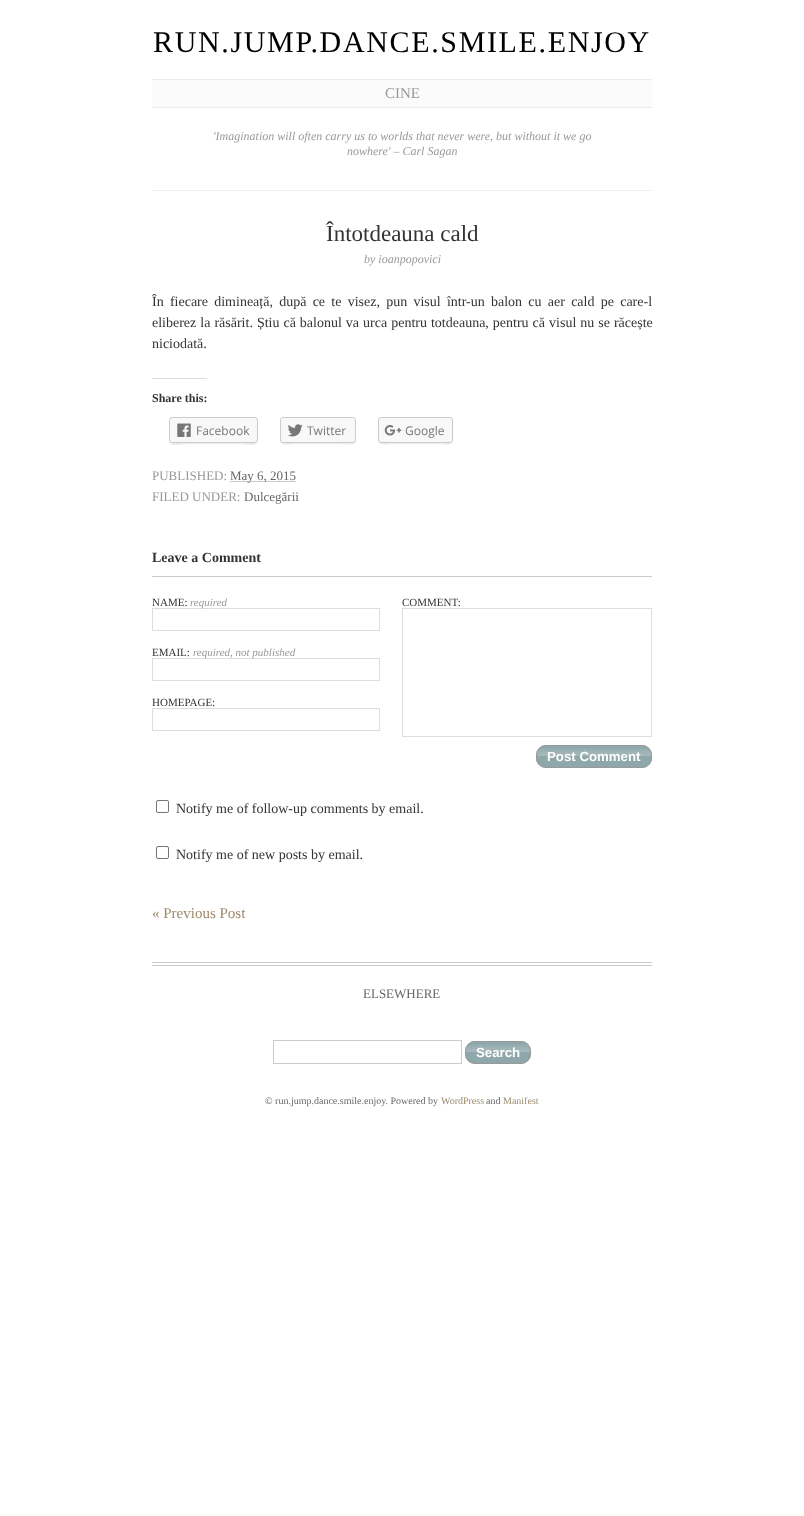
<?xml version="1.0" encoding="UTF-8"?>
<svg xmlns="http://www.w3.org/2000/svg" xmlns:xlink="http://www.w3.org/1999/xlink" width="804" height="1516">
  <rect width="100%" height="100%" fill="#ffffff" />
  <rect x="152" y="80" width="500" height="27" fill="#fbfbfb" />
  <rect x="152" y="79" width="500" height="1" fill="#eaeaea" />
  <rect x="152" y="107" width="500" height="1" fill="#eaeaea" />
  <rect x="152" y="190" width="500" height="1" fill="#efefef" />
  <rect x="152" y="378" width="55" height="1" fill="#dddddd" />
  <path d="M 169 440 c 0 8 13 4 17 4 h 55 c 4 0 17 4 17 -4 c 0 2 -1 3 -3 3 h -83 c -2 0 -3 -1 -3 -3 z" fill="#ebebeb" />
  <rect x="169.5" y="417.5" width="88" height="25" rx="2.5" fill="#f8f8f8" stroke="#cccccc" />
  <image x="177" y="423" width="14" height="14" xlink:href="image1.png" />
  <path d="M 280 440 c 0 7 11 4 15 4 h 46 c 4 0 15 3 15 -4 c 0 2 -1 3 -3 3 h -70 c -2 0 -3 -1 -3 -3 z" fill="#ebebeb" />
  <rect x="280.5" y="417.5" width="75" height="25" rx="2.5" fill="#f8f8f8" stroke="#cccccc" />
  <image x="288" y="424" width="15" height="13" xlink:href="image2.png" />
  <path d="M 378 440 c 0 7 10 4 14 4 h 46 c 5 0 15 3 15 -4 c 0 2 -1 3 -3 3 h -69 c -2 0 -3 -1 -3 -3 z" fill="#ebebeb" />
  <rect x="378.5" y="417.5" width="74" height="25" rx="2.5" fill="#f8f8f8" stroke="#cccccc" />
  <image x="384" y="425" width="18" height="11" xlink:href="image3.png" />
  <path d="M 230.5 481.5 h 66" fill="none" stroke="#999999" stroke-dasharray="1 1" />
  <rect x="152" y="576" width="500" height="1" fill="#cccccc" />
  <rect x="152.5" y="608.5" width="227" height="22" fill="none" stroke="#dddddd" />
  <rect x="152.5" y="658.5" width="227" height="22" fill="none" stroke="#dddddd" />
  <rect x="152.5" y="708.5" width="227" height="22" fill="none" stroke="#dddddd" />
  <rect x="402.5" y="608.5" width="249" height="128" fill="none" stroke="#dddddd" />
  <rect x="536" y="745" width="116" height="23" rx="10" fill="#8ea7aa" />
  <image x="536" y="748" width="116" height="8" xlink:href="image4.png" />
  <rect x="536.5" y="745.5" width="115" height="22" rx="9.5" fill="none" stroke="#999999" />
  <rect x="156.5" y="800.5" width="12" height="12" rx="1.5" fill="none" stroke="#767676" />
  <rect x="156.5" y="846.5" width="12" height="12" rx="1.5" fill="none" stroke="#767676" />
  <rect x="152" y="962" width="500" height="1" fill="#cccccc" />
  <rect x="152" y="965" width="500" height="1" fill="#cccccc" />
  <rect x="273.5" y="1040.5" width="188" height="23" fill="none" stroke="#cccccc" />
  <rect x="465" y="1041" width="66" height="23" rx="10" fill="#8ea7aa" />
  <image x="465" y="1044" width="66" height="8" xlink:href="image5.png" />
  <rect x="465.5" y="1041.5" width="65" height="22" rx="9.5" fill="none" stroke="#999999" />
  <text x="153" y="52" style="font-family: Liberation Serif; font-size: 30px; letter-spacing: 1.65px; fill: #000000">RUN.JUMP.DANCE.SMILE.ENJOY</text>
  <text x="385" y="98" style="font-family: Liberation Serif; font-size: 15px; fill: #999999">CINE</text>
  <text x="213" y="140" style="font-family: Liberation Serif; font-size: 12px; font-style: italic; fill: #999999">'Imagination will often carry us to worlds that never were, but without it we go</text>
  <text x="347" y="155" style="font-family: Liberation Serif; font-size: 12px; font-style: italic; fill: #999999">nowhere' – Carl Sagan</text>
  <text x="326" y="241" style="font-family: Liberation Serif; font-size: 23px; fill: #333333">Întotdeauna cald</text>
  <text x="364" y="263" style="font-family: Liberation Serif; font-size: 12px; font-style: italic; fill: #999999">by ioanpopovici</text>
  <text x="152" y="306" word-spacing="2.75" style="font-family: Liberation Serif; font-size: 14px; fill: #333333">În fiecare dimineață, după ce te visez, pun visul într-un balon cu aer cald pe care-l</text>
  <text x="152" y="327" word-spacing="0.5" style="font-family: Liberation Serif; font-size: 14px; fill: #333333">eliberez la răsărit. Știu că balonul va urca pentru totdeauna, pentru că visul nu se răcește</text>
  <text x="152" y="348" style="font-family: Liberation Serif; font-size: 14px; fill: #333333">niciodată.</text>
  <text x="152" y="402" style="font-family: Liberation Serif; font-size: 12px; font-weight: bold; fill: #333333">Share this:</text>
  <text x="196" y="435" style="font-family: Open Sans; font-size: 12px; fill: #777777">Facebook</text>
  <text x="307" y="435" style="font-family: Open Sans; font-size: 12px; fill: #777777">Twitter</text>
  <text x="405" y="435" style="font-family: Open Sans; font-size: 12px; fill: #777777">Google</text>
  <text x="152" y="480" style="font-family: Liberation Serif; font-size: 13px; fill: #999999">PUBLISHED:</text>
  <text x="230" y="480" style="font-family: Liberation Serif; font-size: 13px; fill: #666666">May 6, 2015</text>
  <text x="152" y="501" style="font-family: Liberation Serif; font-size: 13px; fill: #999999">FILED UNDER:</text>
  <text x="244" y="501" style="font-family: Liberation Serif; font-size: 13px; fill: #666666">Dulcegării</text>
  <text x="152" y="562" style="font-family: Liberation Serif; font-size: 14px; font-weight: bold; fill: #333333">Leave a Comment</text>
  <text x="152" y="606" style="font-family: Liberation Serif; font-size: 11px; fill: #333333">NAME:</text>
  <text x="190" y="606" style="font-family: Liberation Serif; font-size: 11px; font-style: italic; fill: #999999">required</text>
  <text x="152" y="656" style="font-family: Liberation Serif; font-size: 11px; fill: #333333">EMAIL:</text>
  <text x="193" y="656" style="font-family: Liberation Serif; font-size: 11px; font-style: italic; fill: #999999">required, not published</text>
  <text x="152" y="706" style="font-family: Liberation Serif; font-size: 11px; fill: #333333">HOMEPAGE:</text>
  <text x="402" y="606" style="font-family: Liberation Serif; font-size: 11px; fill: #333333">COMMENT:</text>
  <text x="547" y="761" style="font-family: Liberation Sans; font-size: 13.25px; font-weight: bold; fill: #ffffff">Post Comment</text>
  <text x="176" y="813" style="font-family: Liberation Serif; font-size: 14px; fill: #333333">Notify me of follow-up comments by email.</text>
  <text x="176" y="859" style="font-family: Liberation Serif; font-size: 14px; fill: #333333">Notify me of new posts by email.</text>
  <text x="152" y="918" style="font-family: Liberation Serif; font-size: 15px; fill: #9c8a6a">« Previous Post</text>
  <text x="363" y="998" style="font-family: Liberation Serif; font-size: 13px; fill: #666666">ELSEWHERE</text>
  <text x="476" y="1057" style="font-family: Liberation Sans; font-size: 13.25px; font-weight: bold; fill: #ffffff">Search</text>
  <text x="265" y="1104" style="font-family: Liberation Serif; font-size: 10px; fill: #666666">© run.jump.dance.smile.enjoy. Powered by</text>
  <text x="441" y="1104" style="font-family: Liberation Serif; font-size: 10px; fill: #9c8a6a">WordPress</text>
  <text x="486" y="1104" style="font-family: Liberation Serif; font-size: 10px; fill: #666666">and</text>
  <text x="503" y="1104" style="font-family: Liberation Serif; font-size: 10px; fill: #9c8a6a">Manifest</text>
</svg>
